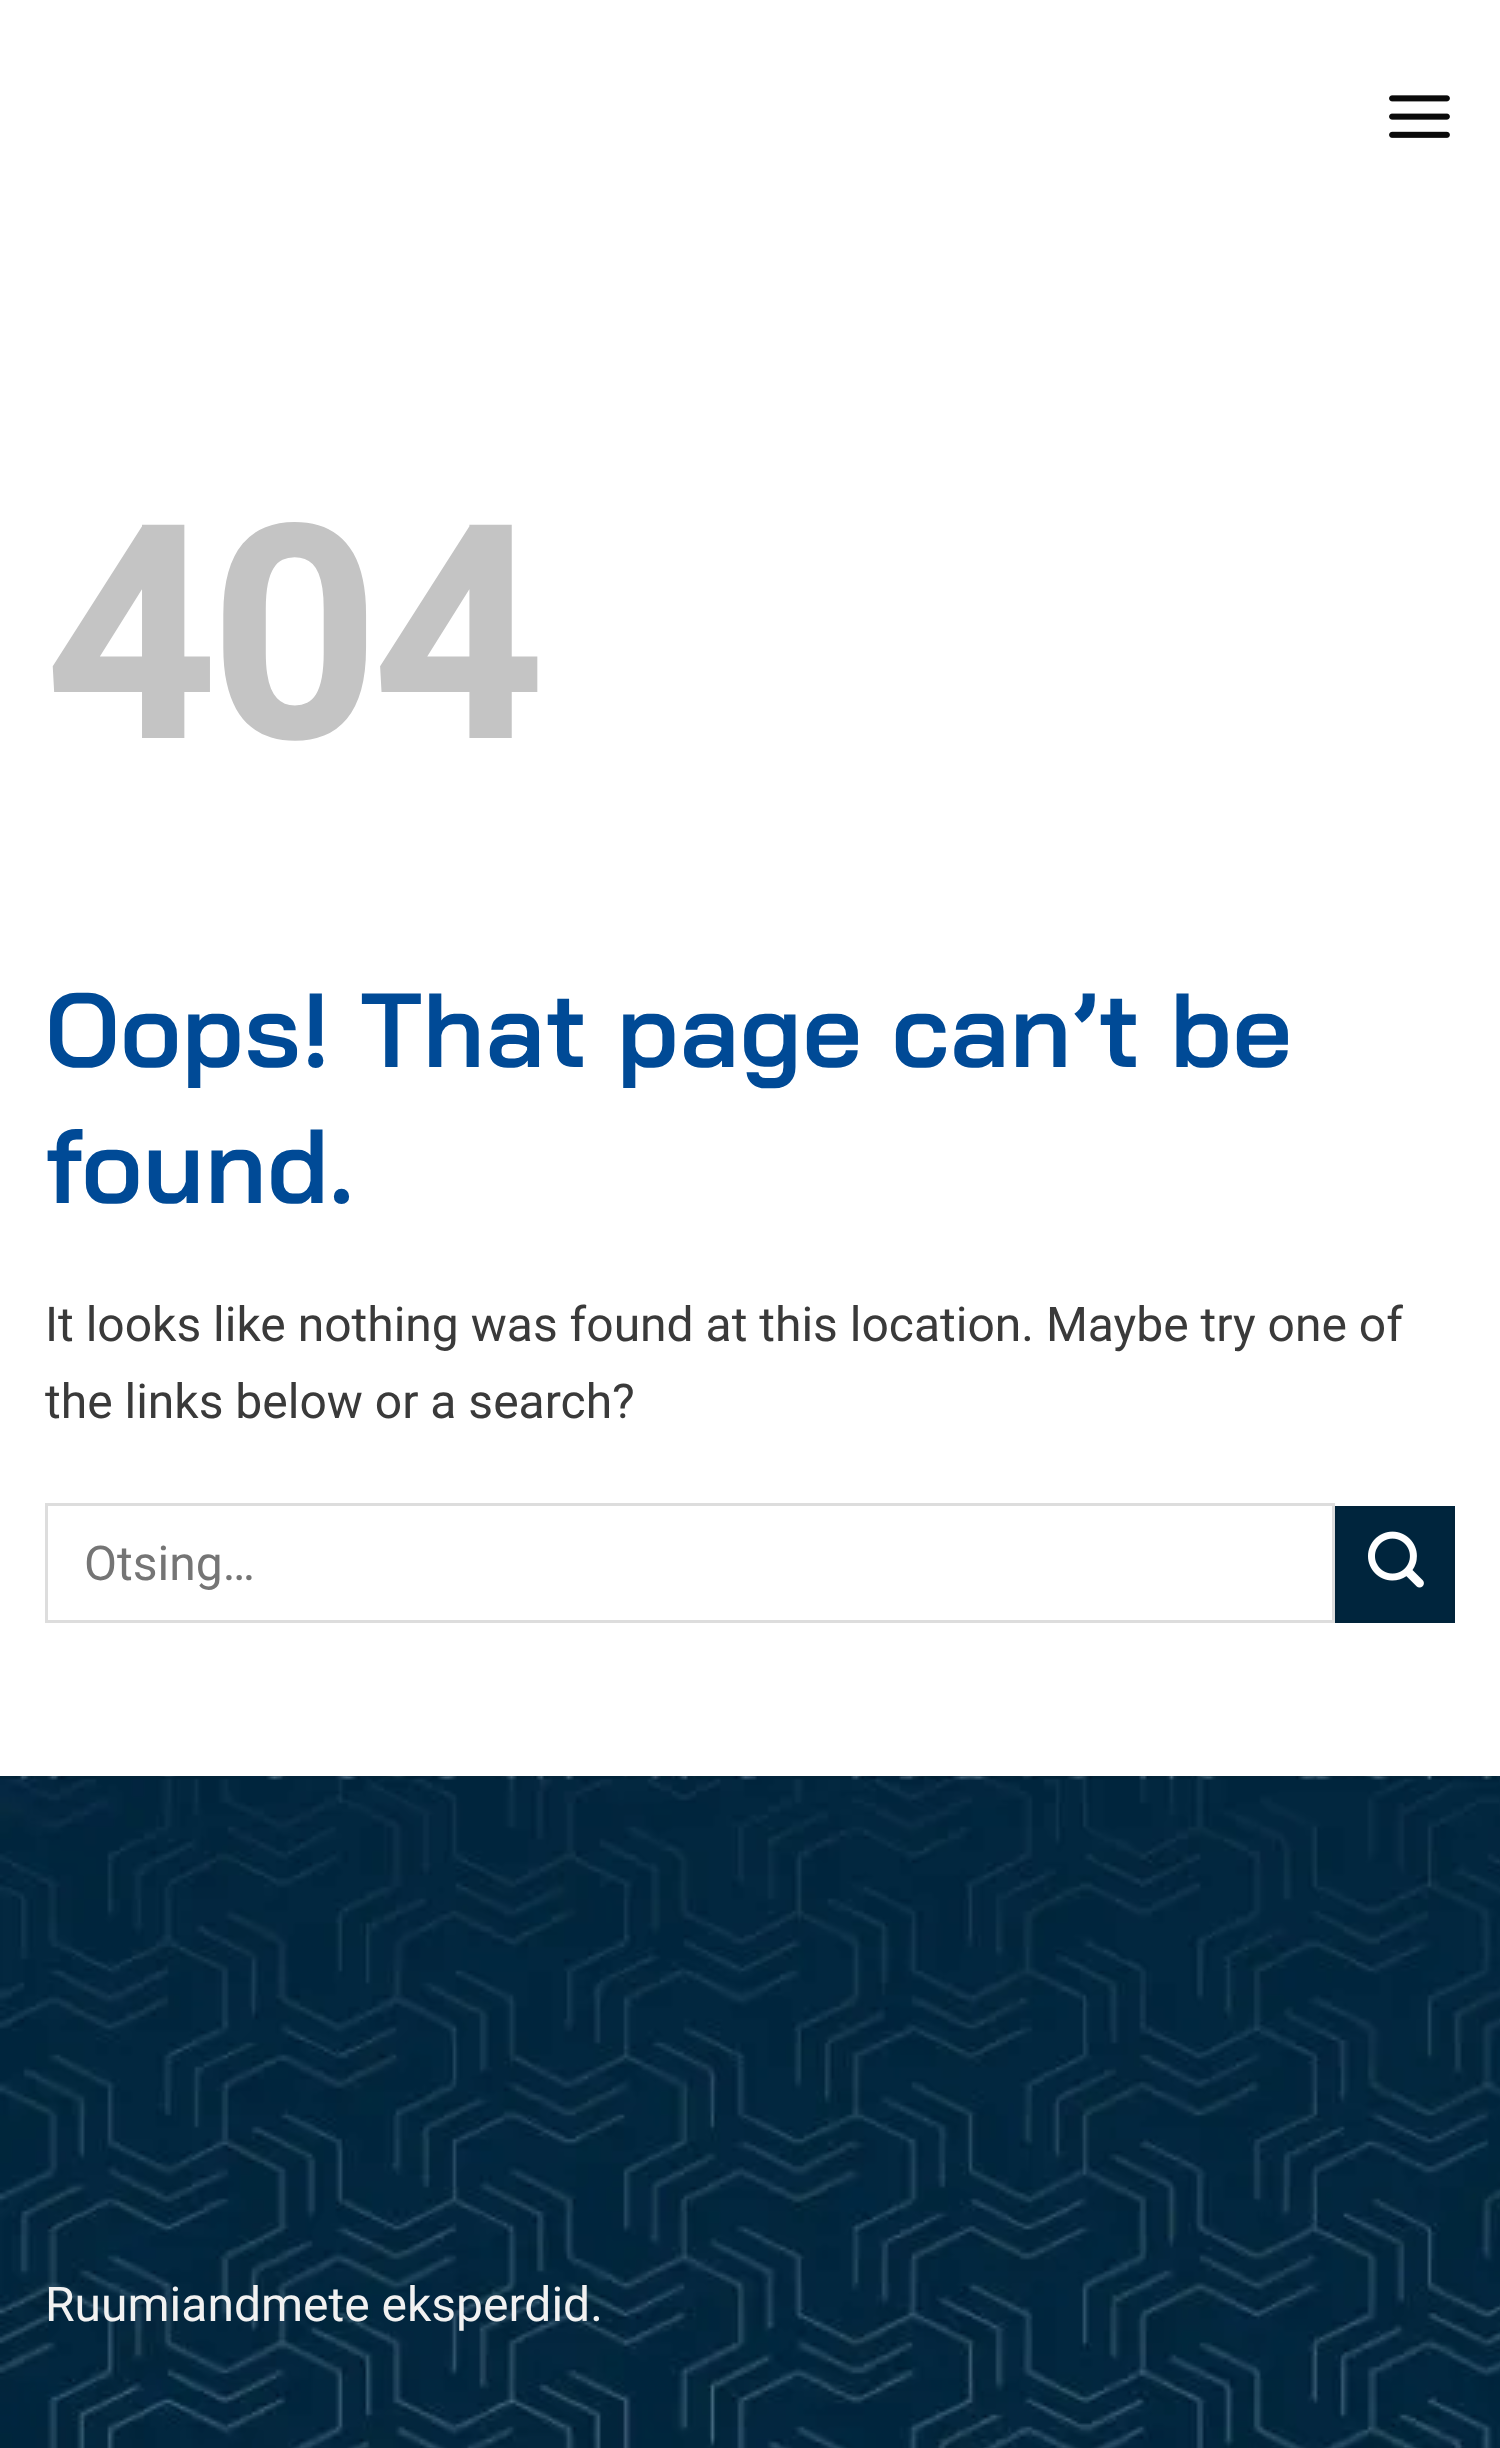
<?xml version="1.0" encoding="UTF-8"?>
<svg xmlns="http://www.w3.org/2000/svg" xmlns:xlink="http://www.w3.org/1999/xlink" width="1500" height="2448">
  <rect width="100%" height="100%" fill="#ffffff" />
  <image x="1389" y="95" width="61" height="43" xlink:href="image1.png" />
  <rect x="46.5" y="1504.5" width="1287" height="117" fill="none" stroke="#dddddd" stroke-width="3" />
  <rect x="1336.5" y="1507.5" width="117" height="114" fill="#00253d" stroke="#00233a" stroke-width="3" />
  <image x="1368" y="1531" width="56" height="57" xlink:href="image2.png" />
  <image x="0" y="1776" width="1500" height="672" xlink:href="image3.png" />
  <rect y="1776" width="1500" height="3" fill="#000000" fill-opacity="0.05" />
  <text x="45" y="738" style="font-family: Roboto; font-size: 288px; font-weight: bold; fill: #c4c4c4">404</text>
  <text x="45" y="1067" style="font-family: Bai Jamjuree; font-size: 105px; font-weight: 600; fill: #004a96">Oops! That page can’t be</text>
  <text x="45" y="1203" style="font-family: Bai Jamjuree; font-size: 105px; font-weight: 600; fill: #004a96">found.</text>
  <text x="45" y="1341" style="font-family: Roboto; font-size: 48px; fill: #3a3a3a">It looks like nothing was found at this location. Maybe try one of</text>
  <text x="45" y="1418" style="font-family: Roboto; font-size: 48px; fill: #3a3a3a">the links below or a search?</text>
  <text x="84" y="1580" style="font-family: Roboto; font-size: 48px; fill: #757575">Otsing…</text>
  <text x="45" y="2321" style="font-family: Roboto; font-size: 48px; fill: #f1f1f1">Ruumiandmete eksperdid.</text>
</svg>
